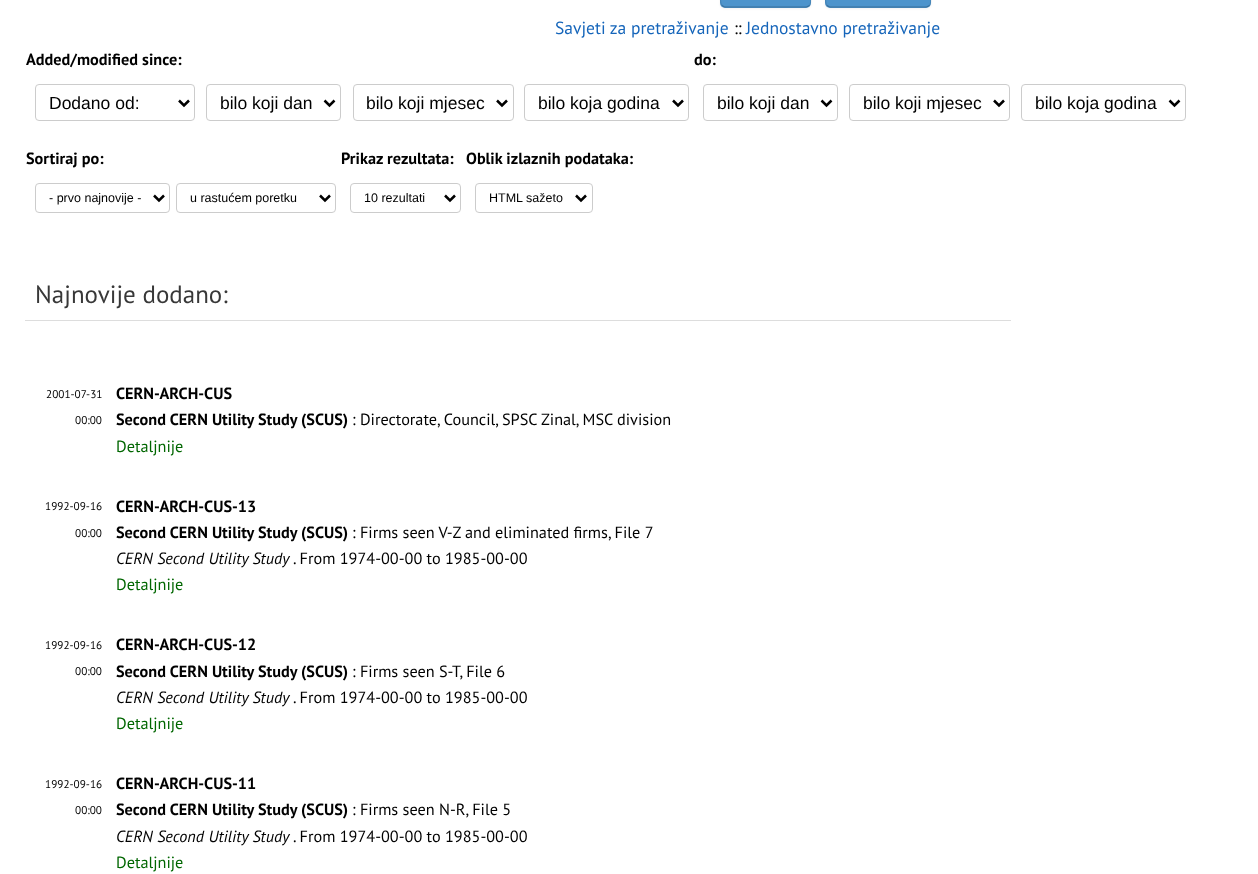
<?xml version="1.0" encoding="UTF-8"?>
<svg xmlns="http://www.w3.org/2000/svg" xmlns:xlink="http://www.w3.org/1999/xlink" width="1258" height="874">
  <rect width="100%" height="100%" fill="#ffffff" />
  <rect x="720" y="-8" width="91" height="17" rx="5" fill="#000000" fill-opacity="0.05" filter="blur(1px)" />
  <rect x="720" y="-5" width="91" height="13" rx="5" fill="#4d94cc" />
  <path d="M 809.5 5.5 l -3 1.5 h -82 l -2.5 -1.5" fill="none" stroke="#000000" stroke-opacity="0.25" stroke-width="1.2" />
  <path d="M 722 5.5 c -2.5 -2.5 -1.5 -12.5 -1.5 -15.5 c 0 -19.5 -2.5 -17 18 -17 h 54 c 20.5 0 18 -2.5 18 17 c 0 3 1.5 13 -1 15.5" fill="none" stroke="#000000" stroke-opacity="0.1" stroke-width="1.2" />
  <rect x="825" y="-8" width="106" height="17" rx="5" fill="#000000" fill-opacity="0.05" filter="blur(1px)" />
  <rect x="825" y="-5" width="106" height="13" rx="5" fill="#4d94cc" />
  <path d="M 929.5 5.5 l -3 1.5 h -97 l -2.5 -1.5" fill="none" stroke="#000000" stroke-opacity="0.25" stroke-width="1.2" />
  <path d="M 827 5.5 c -2.5 -2.5 -1.5 -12.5 -1.5 -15.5 c 0 -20.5 -2 -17 20.5 -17 h 64 c 25 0 20.5 -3 20.5 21 c 0 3.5 1.5 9 -1 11.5" fill="none" stroke="#000000" stroke-opacity="0.1" stroke-width="1.2" />
  <rect x="35.5" y="84.5" width="159" height="36" rx="3.5" fill="none" stroke="#cccccc" />
  <path d="M 179 100.5 l 5 5 l 5 -5" fill="none" stroke="#000000" stroke-width="2.5" />
  <rect x="206.5" y="84.5" width="134" height="36" rx="3.5" fill="none" stroke="#cccccc" />
  <path d="M 324.5 100.5 l 5 5 l 5 -5" fill="none" stroke="#000000" stroke-width="2.5" />
  <rect x="353.5" y="84.5" width="160" height="36" rx="3.5" fill="none" stroke="#cccccc" />
  <path d="M 497 100.5 l 5 5 l 5 -5" fill="none" stroke="#000000" stroke-width="2.5" />
  <rect x="524.5" y="84.5" width="164" height="36" rx="3.5" fill="none" stroke="#cccccc" />
  <path d="M 673 100.5 l 5 5 l 5 -5" fill="none" stroke="#000000" stroke-width="2.5" />
  <rect x="703.5" y="84.5" width="134" height="36" rx="3.5" fill="none" stroke="#cccccc" />
  <path d="M 821.5 100.5 l 5 5 l 5 -5" fill="none" stroke="#000000" stroke-width="2.5" />
  <rect x="849.5" y="84.5" width="160" height="36" rx="3.5" fill="none" stroke="#cccccc" />
  <path d="M 994 100.5 l 5 5 l 5 -5" fill="none" stroke="#000000" stroke-width="2.5" />
  <rect x="1021.5" y="84.5" width="164" height="36" rx="3.5" fill="none" stroke="#cccccc" />
  <path d="M 1169.5 100.5 l 5 5 l 5 -5" fill="none" stroke="#000000" stroke-width="2.5" />
  <rect x="35.5" y="183.5" width="134" height="29" rx="3.5" fill="none" stroke="#cccccc" />
  <path d="M 154 195.5 l 5 5 l 5 -5" fill="none" stroke="#000000" stroke-width="2.5" />
  <rect x="176.5" y="183.5" width="159" height="29" rx="3.5" fill="none" stroke="#cccccc" />
  <path d="M 320 195.5 l 5 5 l 5 -5" fill="none" stroke="#000000" stroke-width="2.5" />
  <rect x="350.5" y="183.5" width="110" height="29" rx="3.5" fill="none" stroke="#cccccc" />
  <path d="M 445 195.5 l 5 5 l 5 -5" fill="none" stroke="#000000" stroke-width="2.5" />
  <rect x="475.5" y="183.5" width="117" height="29" rx="3.5" fill="none" stroke="#cccccc" />
  <path d="M 576 195.5 l 5 5 l 5 -5" fill="none" stroke="#000000" stroke-width="2.5" />
  <rect x="25" y="320" width="986" height="1" fill="#dddddd" />
  <text x="555" y="34" style="font-family: PT Sans; font-size: 17.5px; fill: #1565ba">Savjeti za pretraživanje</text>
  <text x="734" y="34" style="font-family: PT Sans; font-size: 17.5px; fill: #000000">::</text>
  <text x="746" y="34" style="font-family: PT Sans; font-size: 17.5px; fill: #1565ba">Jednostavno pretraživanje</text>
  <text x="26" y="65" style="font-family: PT Sans; font-size: 16.25px; font-weight: bold; fill: #000000">Added/modified since:</text>
  <text x="694" y="65" style="font-family: PT Sans; font-size: 16.25px; font-weight: bold; fill: #000000">do:</text>
  <text x="49" y="109" style="font-family: Liberation Sans; font-size: 17.5px; fill: #000000">Dodano od:</text>
  <text x="220" y="109" style="font-family: Liberation Sans; font-size: 17.5px; fill: #000000">bilo koji dan</text>
  <text x="366" y="109" style="font-family: Liberation Sans; font-size: 17.5px; fill: #000000">bilo koji mjesec</text>
  <text x="538" y="109" style="font-family: Liberation Sans; font-size: 17.5px; fill: #000000">bilo koja godina</text>
  <text x="717" y="109" style="font-family: Liberation Sans; font-size: 17.5px; fill: #000000">bilo koji dan</text>
  <text x="863" y="109" style="font-family: Liberation Sans; font-size: 17.5px; fill: #000000">bilo koji mjesec</text>
  <text x="1035" y="109" style="font-family: Liberation Sans; font-size: 17.5px; fill: #000000">bilo koja godina</text>
  <text x="26" y="164" style="font-family: PT Sans; font-size: 16.25px; font-weight: bold; fill: #000000">Sortiraj po:</text>
  <text x="341" y="164" style="font-family: PT Sans; font-size: 16.25px; font-weight: bold; fill: #000000">Prikaz rezultata:</text>
  <text x="466" y="164" style="font-family: PT Sans; font-size: 16.25px; font-weight: bold; fill: #000000">Oblik izlaznih podataka:</text>
  <text x="49" y="202" style="font-family: Liberation Sans; font-size: 12.5px; fill: #000000">- prvo najnovije -</text>
  <text x="190" y="202" style="font-family: Liberation Sans; font-size: 12.5px; fill: #000000">u rastućem poretku</text>
  <text x="364" y="202" style="font-family: Liberation Sans; font-size: 12.5px; fill: #000000">10 rezultati</text>
  <text x="489" y="202" style="font-family: Liberation Sans; font-size: 12.5px; fill: #000000">HTML sažeto</text>
  <text x="35" y="303" style="font-family: PT Sans; font-size: 25px; fill: #383838">Najnovije dodano:</text>
  <text x="46" y="398" style="font-family: PT Sans; font-size: 11.25px; fill: #000000">2001-07-31</text>
  <text x="75" y="424" style="font-family: PT Sans; font-size: 11.25px; fill: #000000">00:00</text>
  <text x="116" y="399" style="font-family: PT Sans; font-size: 16.25px; font-weight: bold; fill: #000000">CERN-ARCH-CUS</text>
  <text x="116" y="425" style="font-family: PT Sans; font-size: 16.25px; font-weight: bold; fill: #000000">Second CERN Utility Study (SCUS)</text>
  <text x="352" y="425" style="font-family: PT Sans; font-size: 16.25px; fill: #000000">: Directorate, Council, SPSC Zinal, MSC division</text>
  <text x="116" y="452" style="font-family: PT Sans; font-size: 16.25px; fill: #006600">Detaljnije</text>
  <text x="45" y="510" style="font-family: PT Sans; font-size: 11.25px; fill: #000000">1992-09-16</text>
  <text x="75" y="537" style="font-family: PT Sans; font-size: 11.25px; fill: #000000">00:00</text>
  <text x="116" y="512" style="font-family: PT Sans; font-size: 16.25px; font-weight: bold; fill: #000000">CERN-ARCH-CUS-13</text>
  <text x="116" y="538" style="font-family: PT Sans; font-size: 16.25px; font-weight: bold; fill: #000000">Second CERN Utility Study (SCUS)</text>
  <text x="352" y="538" style="font-family: PT Sans; font-size: 16.25px; fill: #000000">: Firms seen V-Z and eliminated firms, File 7</text>
  <text x="116" y="564" style="font-family: PT Sans; font-size: 16.25px; font-style: italic; fill: #000000">CERN Second Utility Study</text>
  <text x="293" y="564" style="font-family: PT Sans; font-size: 16.25px; fill: #000000">. From 1974-00-00 to 1985-00-00</text>
  <text x="116" y="590" style="font-family: PT Sans; font-size: 16.25px; fill: #006600">Detaljnije</text>
  <text x="45" y="649" style="font-family: PT Sans; font-size: 11.25px; fill: #000000">1992-09-16</text>
  <text x="75" y="675" style="font-family: PT Sans; font-size: 11.25px; fill: #000000">00:00</text>
  <text x="116" y="650" style="font-family: PT Sans; font-size: 16.25px; font-weight: bold; fill: #000000">CERN-ARCH-CUS-12</text>
  <text x="116" y="677" style="font-family: PT Sans; font-size: 16.25px; font-weight: bold; fill: #000000">Second CERN Utility Study (SCUS)</text>
  <text x="352" y="677" style="font-family: PT Sans; font-size: 16.25px; fill: #000000">: Firms seen S-T, File 6</text>
  <text x="116" y="703" style="font-family: PT Sans; font-size: 16.25px; font-style: italic; fill: #000000">CERN Second Utility Study</text>
  <text x="293" y="703" style="font-family: PT Sans; font-size: 16.25px; fill: #000000">. From 1974-00-00 to 1985-00-00</text>
  <text x="116" y="729" style="font-family: PT Sans; font-size: 16.25px; fill: #006600">Detaljnije</text>
  <text x="45" y="788" style="font-family: PT Sans; font-size: 11.25px; fill: #000000">1992-09-16</text>
  <text x="75" y="814" style="font-family: PT Sans; font-size: 11.25px; fill: #000000">00:00</text>
  <text x="116" y="789" style="font-family: PT Sans; font-size: 16.25px; font-weight: bold; fill: #000000">CERN-ARCH-CUS-11</text>
  <text x="116" y="815" style="font-family: PT Sans; font-size: 16.25px; font-weight: bold; fill: #000000">Second CERN Utility Study (SCUS)</text>
  <text x="352" y="815" style="font-family: PT Sans; font-size: 16.25px; fill: #000000">: Firms seen N-R, File 5</text>
  <text x="116" y="842" style="font-family: PT Sans; font-size: 16.25px; font-style: italic; fill: #000000">CERN Second Utility Study</text>
  <text x="293" y="842" style="font-family: PT Sans; font-size: 16.25px; fill: #000000">. From 1974-00-00 to 1985-00-00</text>
  <text x="116" y="868" style="font-family: PT Sans; font-size: 16.25px; fill: #006600">Detaljnije</text>
</svg>
